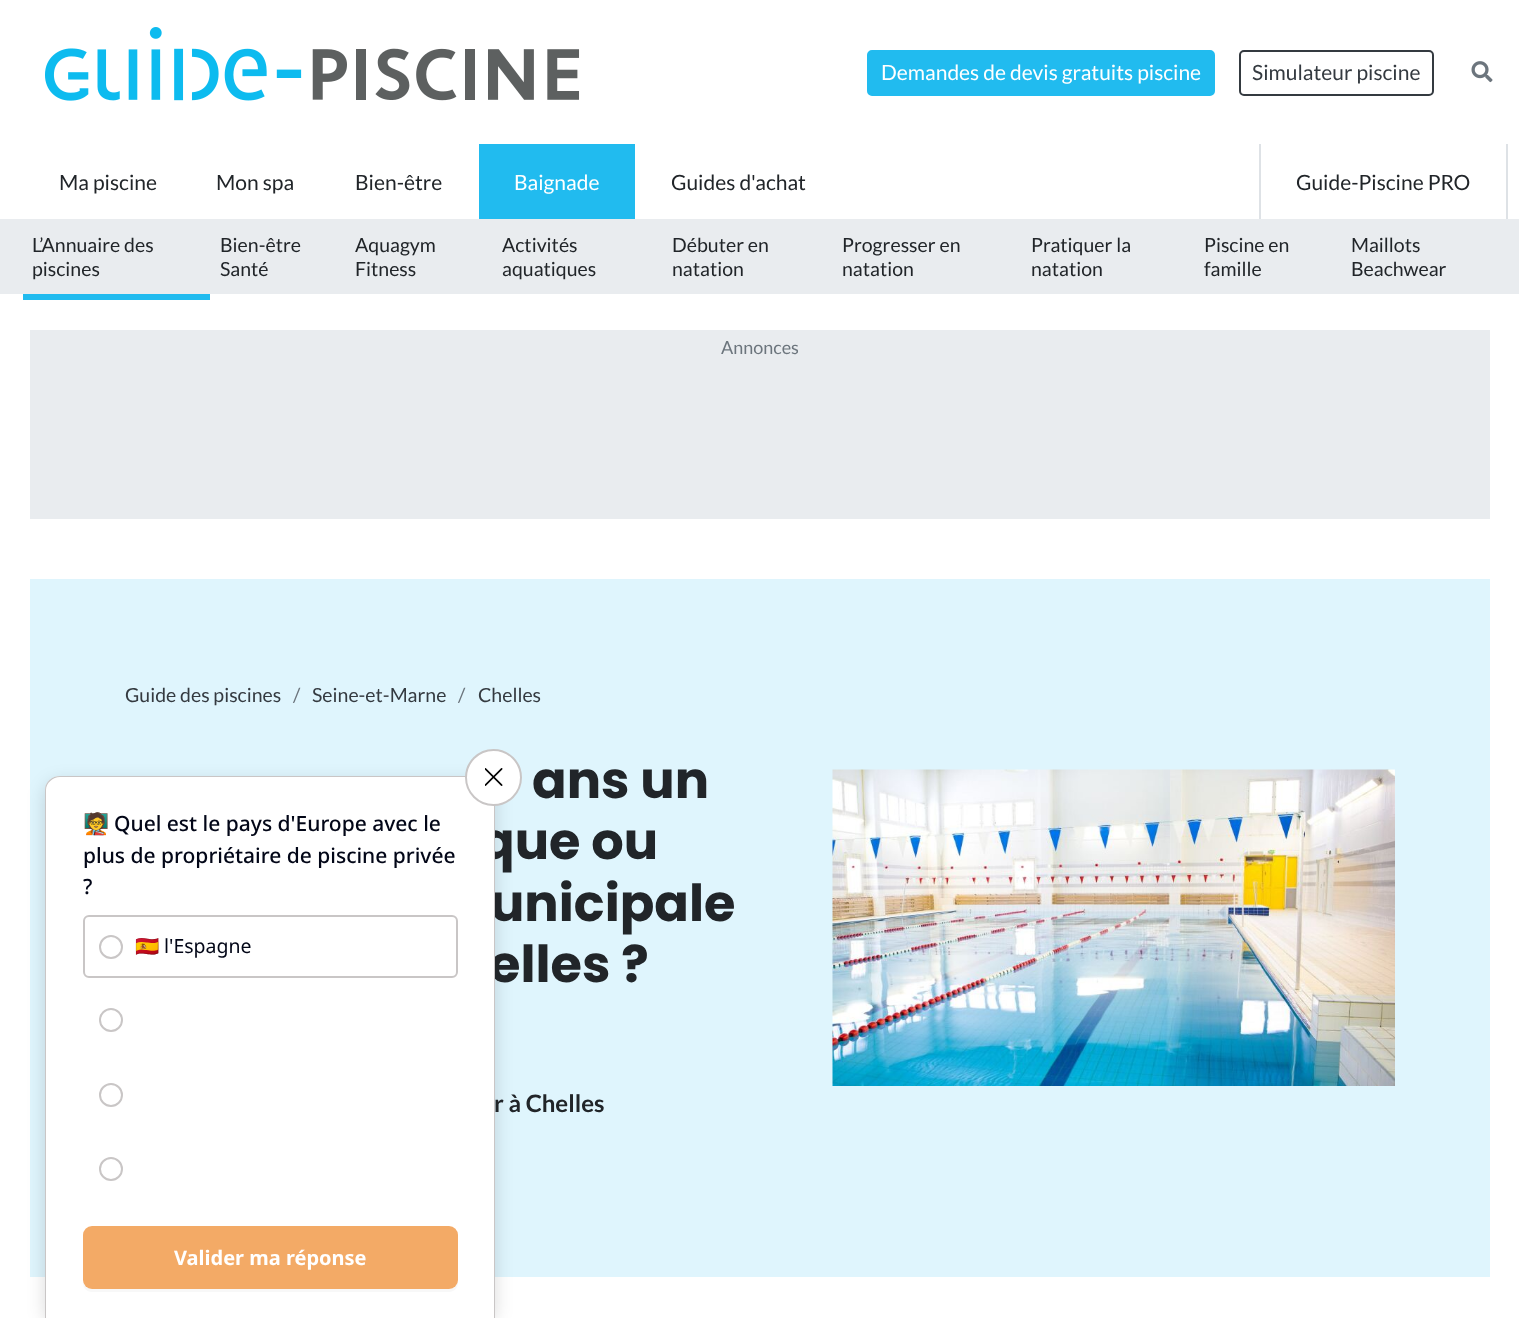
<?xml version="1.0" encoding="UTF-8"?>
<svg xmlns="http://www.w3.org/2000/svg" xmlns:xlink="http://www.w3.org/1999/xlink" width="1519" height="1318">
  <rect width="100%" height="100%" fill="#ffffff" />
  <image x="45" y="27" width="535" height="74" xlink:href="image1.png" />
  <rect x="868" y="51" width="346" height="44" rx="4" fill="#21bbef" stroke="#21bbef" stroke-width="2" />
  <rect x="1240" y="51" width="193" height="44" rx="4" fill="none" stroke="#343a40" stroke-width="2" />
  <image x="1471" y="61" width="22" height="22" xlink:href="image2.png" />
  <rect x="479" y="144" width="156" height="75" fill="#21bbef" />
  <rect y="219" width="1519" height="75" fill="#e9ecef" />
  <rect x="23" y="294" width="187" height="6" fill="#21bbef" />
  <rect x="1506" y="144" width="2" height="75" fill="#dee2e6" />
  <rect x="1259" y="144" width="2" height="75" fill="#dee2e6" />
  <rect x="30" y="330" width="1460" height="189" fill="#e9ecef" />
  <rect x="30" y="579" width="1460" height="698" fill="#dff5fd" />
  <image x="832" y="769" width="563" height="317" xlink:href="image3.png" />
  <rect x="45" y="782" width="450" height="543" rx="15" fill="#000000" fill-opacity="0.15" filter="blur(9px)" />
  <text x="881" y="80" style="font-family: Lato; font-size: 21px; fill: #ffffff">Demandes de devis gratuits piscine</text>
  <text x="1252" y="80" style="font-family: Lato; font-size: 21px; fill: #343a40">Simulateur piscine</text>
  <text x="514" y="190" style="font-family: Lato; font-size: 21px; fill: #ffffff">Baignade</text>
  <text x="32" y="252" style="font-family: Lato; font-size: 19.5px; fill: #212529">L’Annuaire des</text>
  <text x="32" y="276" style="font-family: Lato; font-size: 19.5px; fill: #212529">piscines</text>
  <text x="220" y="252" style="font-family: Lato; font-size: 19.5px; fill: #212529">Bien-être</text>
  <text x="220" y="276" style="font-family: Lato; font-size: 19.5px; fill: #212529">Santé</text>
  <text x="355" y="252" style="font-family: Lato; font-size: 19.5px; fill: #212529">Aquagym</text>
  <text x="355" y="276" style="font-family: Lato; font-size: 19.5px; fill: #212529">Fitness</text>
  <text x="502" y="252" style="font-family: Lato; font-size: 19.5px; fill: #212529">Activités</text>
  <text x="502" y="276" style="font-family: Lato; font-size: 19.5px; fill: #212529">aquatiques</text>
  <text x="672" y="252" style="font-family: Lato; font-size: 19.5px; fill: #212529">Débuter en</text>
  <text x="672" y="276" style="font-family: Lato; font-size: 19.5px; fill: #212529">natation</text>
  <text x="842" y="252" style="font-family: Lato; font-size: 19.5px; fill: #212529">Progresser en</text>
  <text x="842" y="276" style="font-family: Lato; font-size: 19.5px; fill: #212529">natation</text>
  <text x="1031" y="252" style="font-family: Lato; font-size: 19.5px; fill: #212529">Pratiquer la</text>
  <text x="1031" y="276" style="font-family: Lato; font-size: 19.5px; fill: #212529">natation</text>
  <text x="1204" y="252" style="font-family: Lato; font-size: 19.5px; fill: #212529">Piscine en</text>
  <text x="1204" y="276" style="font-family: Lato; font-size: 19.5px; fill: #212529">famille</text>
  <text x="1351" y="252" style="font-family: Lato; font-size: 19.5px; fill: #212529">Maillots</text>
  <text x="1351" y="276" style="font-family: Lato; font-size: 19.5px; fill: #212529">Beachwear</text>
  <text x="59" y="190" style="font-family: Lato; font-size: 21px; fill: #212529">Ma piscine</text>
  <text x="216" y="190" style="font-family: Lato; font-size: 21px; fill: #212529">Mon spa</text>
  <text x="355" y="190" style="font-family: Lato; font-size: 21px; fill: #212529">Bien-être</text>
  <text x="671" y="190" style="font-family: Lato; font-size: 21px; fill: #212529">Guides d'achat</text>
  <text x="1296" y="190" style="font-family: Lato; font-size: 21px; fill: #212529">Guide-Piscine PRO</text>
  <text x="721" y="354" style="font-family: Lato; font-size: 18px; fill: #6c757d">Annonces</text>
  <text x="125" y="702" style="font-family: Lato; font-size: 19.5px; fill: #343a40">Guide des piscines</text>
  <text x="293" y="702" style="font-family: Lato; font-size: 19.5px; fill: #6c757d">/</text>
  <text x="312" y="702" style="font-family: Lato; font-size: 19.5px; fill: #343a40">Seine-et-Marne</text>
  <text x="458" y="702" style="font-family: Lato; font-size: 19.5px; fill: #6c757d">/</text>
  <text x="478" y="702" style="font-family: Lato; font-size: 19.5px; fill: #343a40">Chelles</text>
  <text x="532" y="798" style="font-family: Poppins; font-size: 51px; font-weight: bold; fill: #212529">ans un</text>
  <text x="480" y="859" style="font-family: Poppins; font-size: 51px; font-weight: bold; fill: #212529">que ou</text>
  <text x="490" y="921" style="font-family: Poppins; font-size: 51px; font-weight: bold; fill: #212529">unicipale</text>
  <text x="489" y="982" style="font-family: Poppins; font-size: 51px; font-weight: bold; fill: #212529">elles ?</text>
  <text x="494" y="1112" style="font-family: Lato; font-size: 24px; font-weight: bold; fill: #212529">r à Chelles</text>
  <path d="M 60 776 h 420 c 8.5 0 15 6.5 15 15 v 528 h -450 v -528 c 0 -8.5 6.5 -15 15 -15 z" fill="#ffffff" />
  <path d="M 60 776 h 420 c 8 0 15 6 15 14 v 528 h -450 v -528 c 0 -8 7 -14 15 -14 z m 0 1 h 420 c 7 0 14 6 14 13 v 528 h -448 v -528 c 0 -7 7 -13 14 -13 z" fill="#c9c6c6" fill-rule="evenodd" />
  <circle cx="493.5" cy="777.5" r="27.5" fill="#ffffff" stroke="#c9c6c6" stroke-width="2" />
  <image x="485" y="768" width="18" height="18" xlink:href="image4.png" />
  <text x="83" y="831" style="font-family: Noto Color Emoji; font-size: 21px; fill: #020617">🧑‍🏫</text>
  <text x="114" y="831" style="font-family: Noto Sans; font-size: 21px; font-weight: 500; fill: #020617">Quel est le pays d'Europe avec le</text>
  <text x="83" y="863" style="font-family: Noto Sans; font-size: 21px; font-weight: 500; fill: #020617">plus de propriétaire de piscine privée</text>
  <text x="83" y="894" style="font-family: Noto Sans; font-size: 21px; font-weight: 500; fill: #020617">?</text>
  <rect x="84" y="916" width="373" height="61" rx="5" fill="none" stroke="#c9c6c6" stroke-width="2" />
  <circle cx="111" cy="947" r="11" fill="none" stroke="#c9c6c6" stroke-width="2" />
  <text x="135" y="953" style="font-family: Noto Color Emoji; font-size: 19.5px; fill: #020617">🇪🇸</text>
  <text x="164" y="953" style="font-family: Noto Sans; font-size: 19.5px; fill: #020617">l'Espagne</text>
  <circle cx="111" cy="1020" r="11" fill="none" stroke="#c9c6c6" stroke-width="2" />
  <circle cx="111" cy="1095" r="11" fill="none" stroke="#c9c6c6" stroke-width="2" />
  <circle cx="111" cy="1169" r="11" fill="none" stroke="#c9c6c6" stroke-width="2" />
  <path d="M 83 1282 v 1 c 0 5 4 9 9 9 h 357 c 5 0 9 -4 9 -9 v -45 v -3 v 45 c 0 4 -5 8 -10 8 h -356 c -4 0 -8 -2 -9 -6 z" fill="#f8f8f8" />
  <rect x="83" y="1226" width="375" height="63" rx="9" fill="#f3aa66" />
  <text x="174" y="1265" style="font-family: Noto Sans; font-size: 20px; font-weight: bold; fill: #ffffff">Valider ma réponse</text>
</svg>
